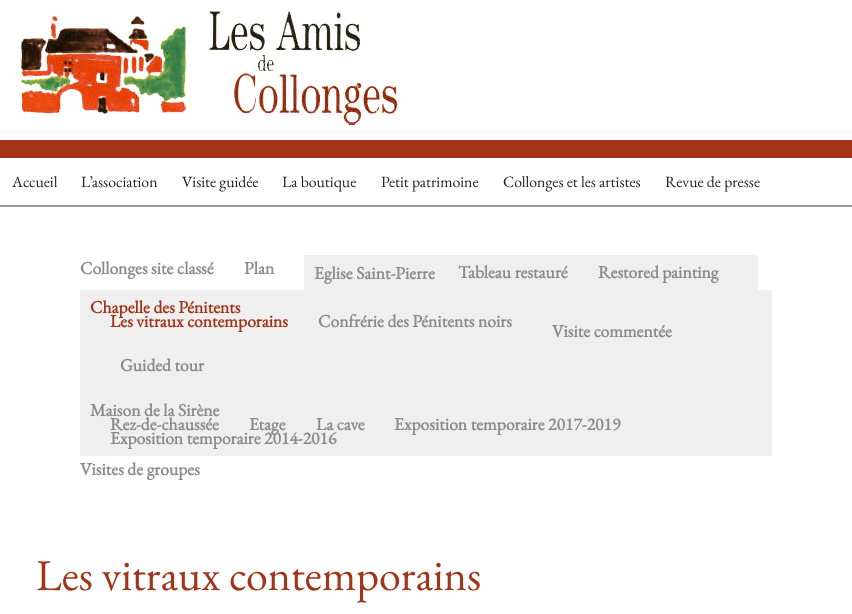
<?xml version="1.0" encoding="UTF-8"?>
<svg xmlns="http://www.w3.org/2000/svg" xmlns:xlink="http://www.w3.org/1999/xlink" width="852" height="614">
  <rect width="100%" height="100%" fill="#ffffff" />
  <image x="20" y="11" width="378" height="114" xlink:href="image1.png" />
  <rect y="140" width="852" height="18" fill="#a23419" />
  <rect y="205" width="852" height="2" fill="#9a9898" />
  <rect x="304" y="255" width="454" height="35" fill="#efefef" />
  <rect x="80" y="290" width="692" height="166" fill="#efefef" />
  <text x="12" y="187" style="font-family: EB Garamond; font-size: 15.75px; fill: #222118">Accueil</text>
  <text x="81" y="187" style="font-family: EB Garamond; font-size: 15.75px; fill: #222118">L’association</text>
  <text x="182" y="187" style="font-family: EB Garamond; font-size: 15.75px; fill: #222118">Visite guidée</text>
  <text x="282" y="187" style="font-family: EB Garamond; font-size: 15.75px; fill: #222118">La boutique</text>
  <text x="381" y="187" style="font-family: EB Garamond; font-size: 15.75px; fill: #222118">Petit patrimoine</text>
  <text x="503" y="187" style="font-family: EB Garamond; font-size: 15.75px; fill: #222118">Collonges et les artistes</text>
  <text x="665" y="187" style="font-family: EB Garamond; font-size: 15.75px; fill: #222118">Revue de presse</text>
  <text x="80" y="274" style="font-family: EB Garamond; font-size: 17.6px; font-weight: bold; fill: #8c8a8a">Collonges site classé</text>
  <text x="244" y="274" style="font-family: EB Garamond; font-size: 17.6px; font-weight: bold; fill: #8c8a8a">Plan</text>
  <text x="314" y="279" style="font-family: EB Garamond; font-size: 17.6px; font-weight: bold; fill: #8c8a8a">Eglise Saint-Pierre</text>
  <text x="458" y="278" style="font-family: EB Garamond; font-size: 17.6px; font-weight: bold; fill: #8c8a8a">Tableau restauré</text>
  <text x="598" y="278" style="font-family: EB Garamond; font-size: 17.6px; font-weight: bold; fill: #8c8a8a">Restored painting</text>
  <text x="90" y="313" style="font-family: EB Garamond; font-size: 17.6px; font-weight: bold; fill: #a23419">Chapelle des Pénitents</text>
  <text x="110" y="327" style="font-family: EB Garamond; font-size: 17.6px; font-weight: bold; fill: #a23419">Les vitraux contemporains</text>
  <text x="318" y="327" style="font-family: EB Garamond; font-size: 17.6px; font-weight: bold; fill: #8c8a8a">Confrérie des Pénitents noirs</text>
  <text x="552" y="337" style="font-family: EB Garamond; font-size: 17.6px; font-weight: bold; fill: #8c8a8a">Visite commentée</text>
  <text x="120" y="371" style="font-family: EB Garamond; font-size: 17.6px; font-weight: bold; fill: #8c8a8a">Guided tour</text>
  <text x="90" y="416" style="font-family: EB Garamond; font-size: 17.6px; font-weight: bold; fill: #8c8a8a">Maison de la Sirène</text>
  <text x="110" y="430" style="font-family: EB Garamond; font-size: 17.6px; font-weight: bold; fill: #8c8a8a">Rez-de-chaussée</text>
  <text x="249" y="430" style="font-family: EB Garamond; font-size: 17.6px; font-weight: bold; fill: #8c8a8a">Etage</text>
  <text x="316" y="430" style="font-family: EB Garamond; font-size: 17.6px; font-weight: bold; fill: #8c8a8a">La cave</text>
  <text x="394" y="430" style="font-family: EB Garamond; font-size: 17.6px; font-weight: bold; fill: #8c8a8a">Exposition temporaire 2017-2019</text>
  <text x="110" y="444" style="font-family: EB Garamond; font-size: 17.6px; font-weight: bold; fill: #8c8a8a">Exposition temporaire 2014-2016</text>
  <text x="80" y="475" style="font-family: EB Garamond; font-size: 17.6px; font-weight: bold; fill: #8c8a8a">Visites de groupes</text>
  <text x="36" y="590" style="font-family: EB Garamond; font-size: 44px; fill: #a23419">Les vitraux contemporains</text>
</svg>
